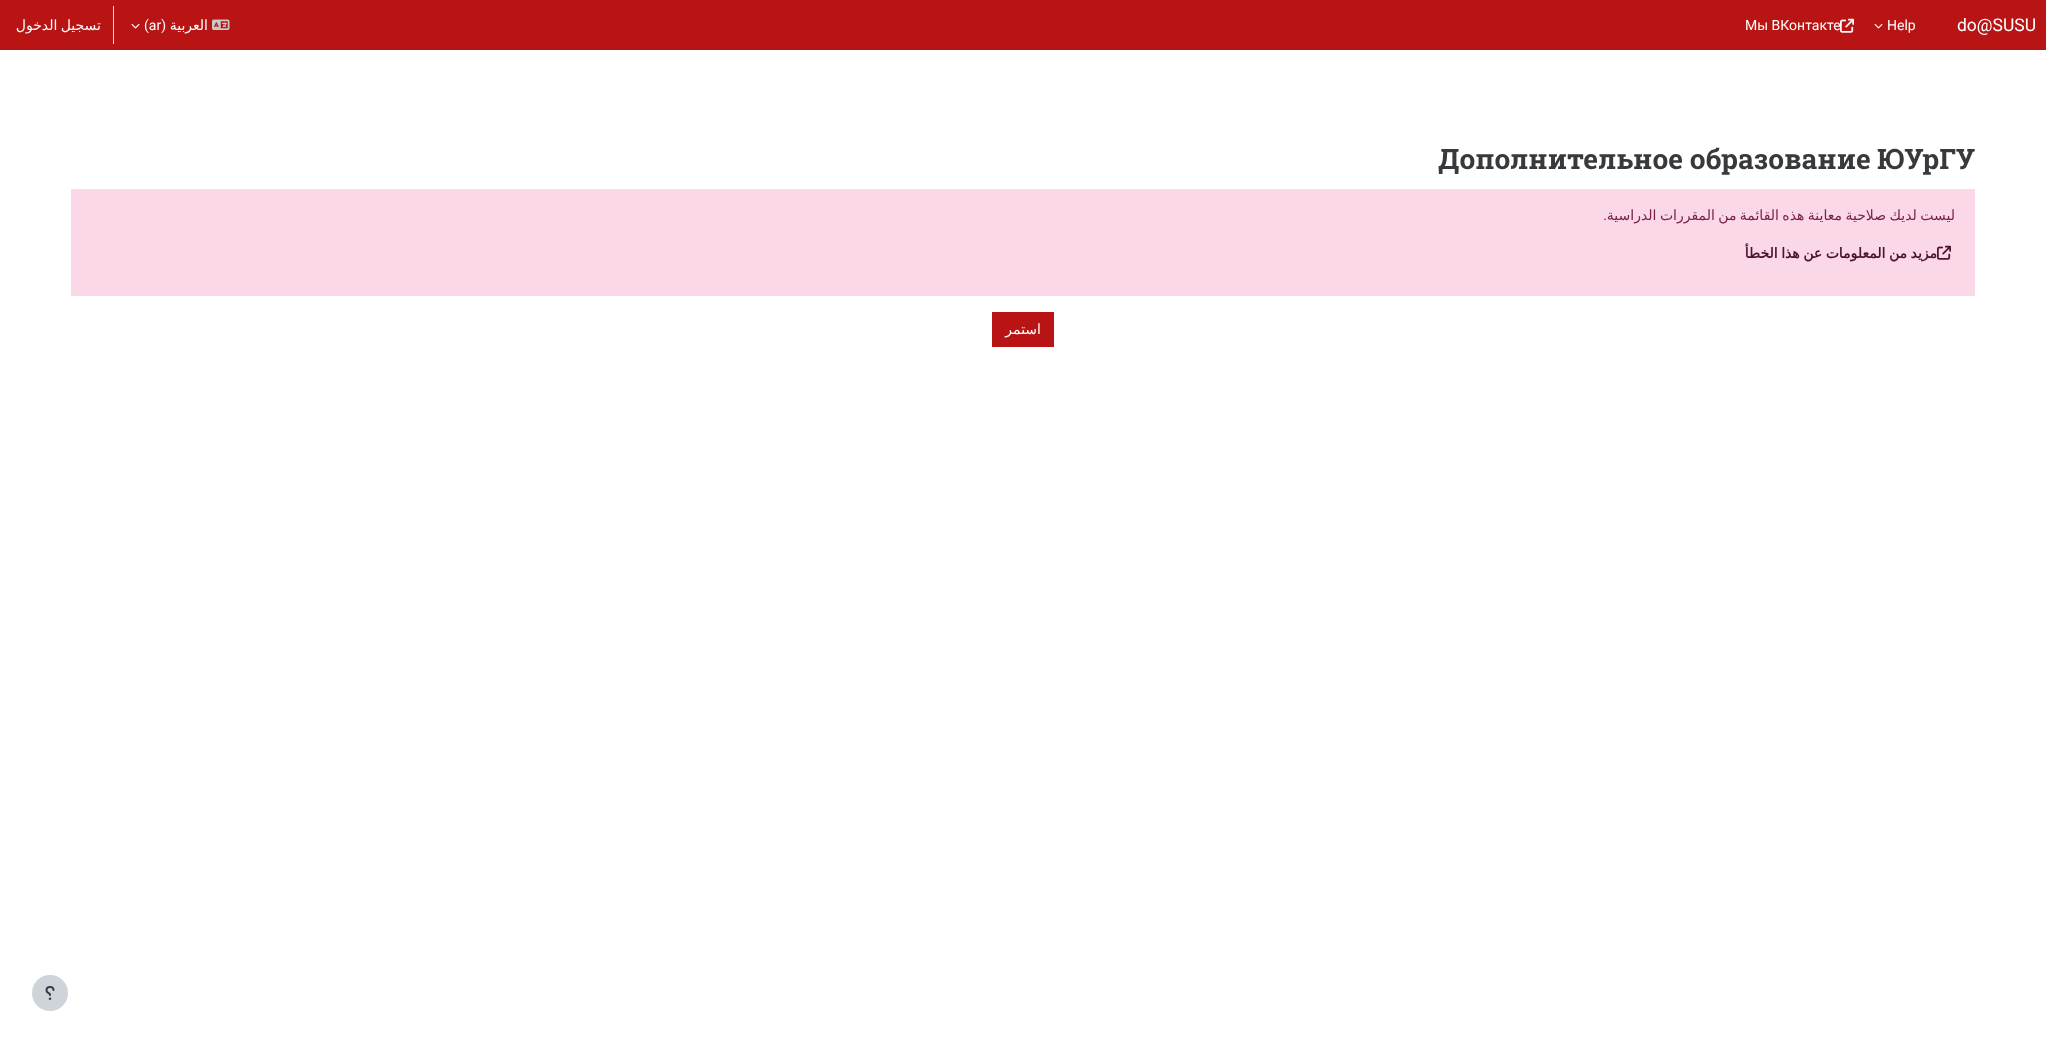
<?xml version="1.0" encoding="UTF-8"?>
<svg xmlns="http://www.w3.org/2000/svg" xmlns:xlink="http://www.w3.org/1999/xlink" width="2046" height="1043">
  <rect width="100%" height="100%" fill="#ffffff" />
  <rect width="2046" height="50" fill="#b81414" />
  <image x="1874" y="24" width="9" height="5" xlink:href="image1.png" />
  <image x="1840" y="18" width="14" height="15" xlink:href="image2.png" />
  <image x="212" y="19" width="18" height="11" xlink:href="image3.png" />
  <image x="131" y="24" width="9" height="5" xlink:href="image1.png" />
  <rect x="113" y="6" width="1" height="38" fill="#dee2e6" />
  <rect x="71" y="189" width="1904" height="107" fill="#fad8e8" />
  <image x="1937" y="245" width="14" height="15" xlink:href="image4.png" />
  <rect x="992" y="312" width="62" height="35" fill="#b81414" />
  <circle cx="50" cy="993" r="18" fill="#ced4da" />
  <image x="45" y="986" width="10" height="14" xlink:href="image5.png" />
  <text x="1957" y="31" style="font-family: Roboto; font-size: 17.5px; fill: #ffffff">do@SUSU</text>
  <text x="1887" y="30" style="font-family: Roboto; font-size: 14px; fill: #ffffff">Help</text>
  <text x="1745" y="30" style="font-family: Roboto; font-size: 14px; fill: #ffffff">Мы ВКонтакте</text>
  <text x="208" y="30" style="font-family: DejaVu Sans; font-size: 14px; direction: rtl; fill: #ffffff">العربية</text>
  <text x="144" y="30" style="font-family: Roboto; font-size: 14px; fill: #ffffff">(ar)</text>
  <text x="101" y="30" word-spacing="-1" style="font-family: DejaVu Sans; font-size: 14px; direction: rtl; fill: #ffffff">تسجيل الدخول</text>
  <text x="1438" y="169" style="font-family: Roboto Slab; font-size: 28px; font-weight: bold; fill: #373a3c">Дополнительное образование ЮУрГУ</text>
  <text x="1955" y="220" word-spacing="-1" style="font-family: DejaVu Sans; font-size: 14px; direction: rtl; fill: #792049">ليست لديك صلاحية معاينة هذه القائمة من المقررات الدراسية</text>
  <text x="1607" y="220" style="font-family: Roboto; font-size: 14px; direction: rtl; fill: #792049">.</text>
  <text x="1937" y="258" word-spacing="-1" style="font-family: DejaVu Sans; font-size: 14px; font-weight: bold; direction: rtl; fill: #4c142e">مزيد من المعلومات عن هذا الخطأ</text>
  <text x="1041" y="334" style="font-family: DejaVu Sans; font-size: 14px; direction: rtl; fill: #ffffff">استمر</text>
</svg>
